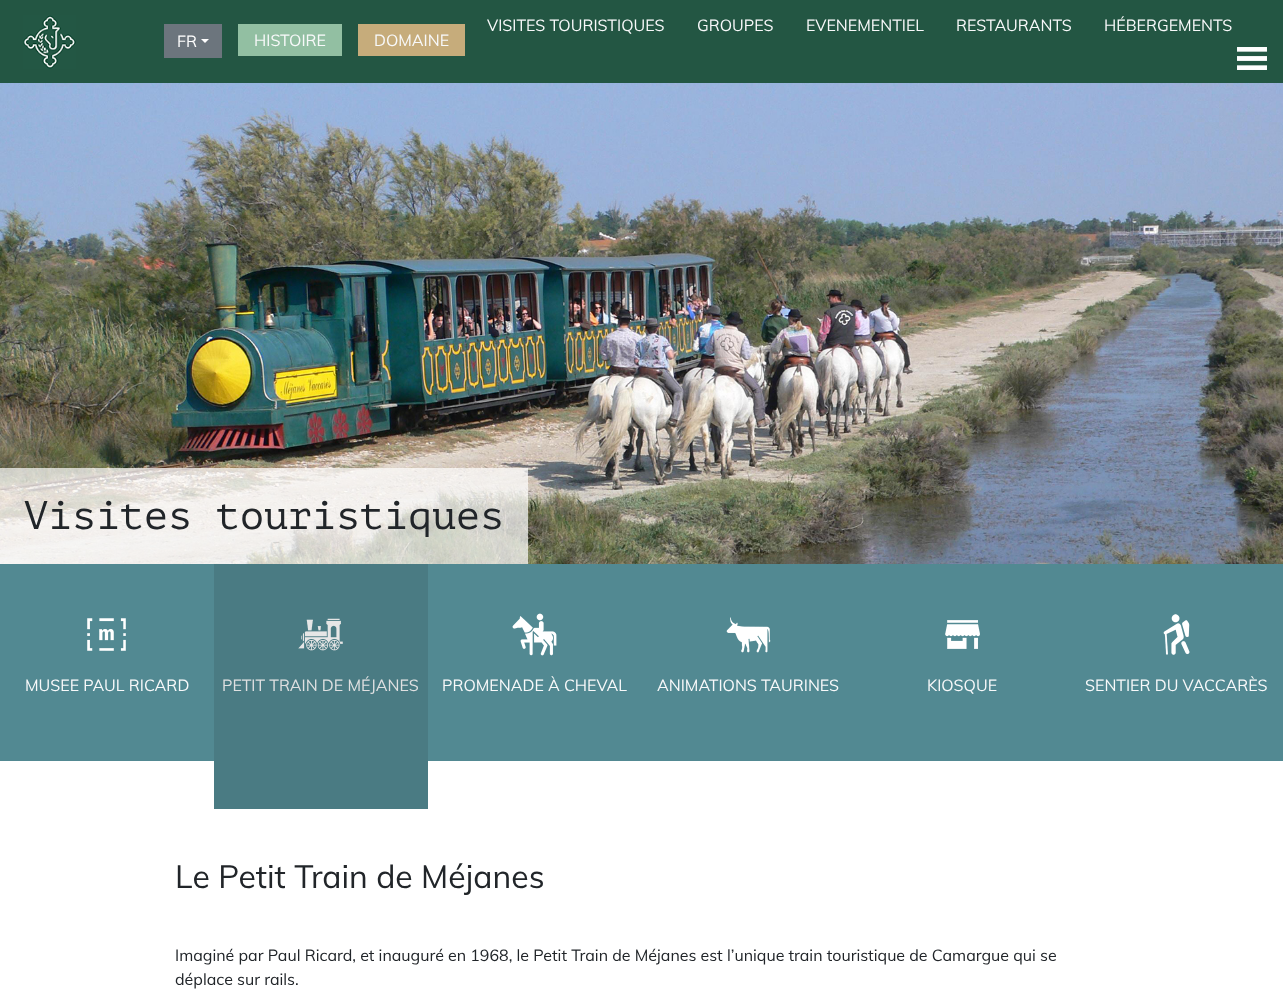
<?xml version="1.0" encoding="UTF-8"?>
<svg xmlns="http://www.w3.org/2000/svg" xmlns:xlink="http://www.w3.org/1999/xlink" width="1283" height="996">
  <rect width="100%" height="100%" fill="#ffffff" />
  <rect width="1283" height="83" fill="#235643" />
  <image x="23" y="15" width="53" height="54" xlink:href="image1.png" />
  <image x="1237" y="47" width="30" height="23" xlink:href="image2.png" />
  <rect x="164" y="24" width="58" height="34" fill="#6c757d" />
  <path d="M 201 39 h 8 l -4 4 z" fill="#ffffff" />
  <rect x="238" y="24" width="104" height="32" fill="#92bfa2" />
  <rect x="358" y="24" width="107" height="32" fill="#c6ac7b" />
  <image x="0" y="83" width="1283" height="481" xlink:href="image3.png" />
  <rect y="468" width="528" height="96" fill="#ffffff" fill-opacity="0.7" />
  <rect y="564" width="214" height="197" fill="#528992" />
  <image x="87" y="618" width="39" height="33" xlink:href="image4.png" />
  <rect x="214" y="564" width="214" height="245" fill="#4a7b83" />
  <image x="298" y="618" width="45" height="33" xlink:href="image5.png" />
  <rect x="428" y="564" width="855" height="197" fill="#528992" />
  <image x="512" y="613" width="45" height="43" xlink:href="image6.png" />
  <image x="726" y="617" width="45" height="36" xlink:href="image7.png" />
  <image x="945" y="620" width="35" height="29" xlink:href="image8.png" />
  <image x="1163" y="614" width="27" height="41" xlink:href="image9.png" />
  <text x="487" y="31" style="font-family: Muli; font-size: 16px; fill: #f8f9fa">VISITES TOURISTIQUES</text>
  <text x="697" y="31" style="font-family: Muli; font-size: 16px; fill: #f8f9fa">GROUPES</text>
  <text x="806" y="31" style="font-family: Muli; font-size: 16px; fill: #f8f9fa">EVENEMENTIEL</text>
  <text x="956" y="31" style="font-family: Muli; font-size: 16px; fill: #f8f9fa">RESTAURANTS</text>
  <text x="1104" y="31" style="font-family: Muli; font-size: 16px; fill: #f8f9fa">HÉBERGEMENTS</text>
  <text x="177" y="47" style="font-family: Muli; font-size: 16px; fill: #ffffff">FR</text>
  <text x="254" y="46" style="font-family: Muli; font-size: 16px; fill: #f8f9fa">HISTOIRE</text>
  <text x="374" y="46" style="font-family: Muli; font-size: 16px; fill: #f8f9fa">DOMAINE</text>
  <text x="24" y="529" style="font-family: PT Mono; font-size: 40px; fill: #212529">Visites touristiques</text>
  <text x="25" y="691" style="font-family: Muli; font-size: 16px; fill: #f8f9fa">MUSEE PAUL RICARD</text>
  <text x="222" y="691" style="font-family: Muli; font-size: 16px; fill: #dfe0e1">PETIT TRAIN DE MÉJANES</text>
  <text x="442" y="691" style="font-family: Muli; font-size: 16px; fill: #f8f9fa">PROMENADE À CHEVAL</text>
  <text x="657" y="691" style="font-family: Muli; font-size: 16px; fill: #f8f9fa">ANIMATIONS TAURINES</text>
  <text x="927" y="691" style="font-family: Muli; font-size: 16px; fill: #f8f9fa">KIOSQUE</text>
  <text x="1085" y="691" style="font-family: Muli; font-size: 16px; fill: #f8f9fa">SENTIER DU VACCARÈS</text>
  <text x="175" y="888" style="font-family: Muli; font-size: 32px; fill: #212529">Le Petit Train de Méjanes</text>
  <text x="175" y="961" style="font-family: Muli; font-size: 16px; fill: #212529">Imaginé par Paul Ricard, et inauguré en 1968, le Petit Train de Méjanes est l’unique train touristique de Camargue qui se</text>
  <text x="175" y="985" style="font-family: Muli; font-size: 16px; fill: #212529">déplace sur rails.</text>
</svg>
